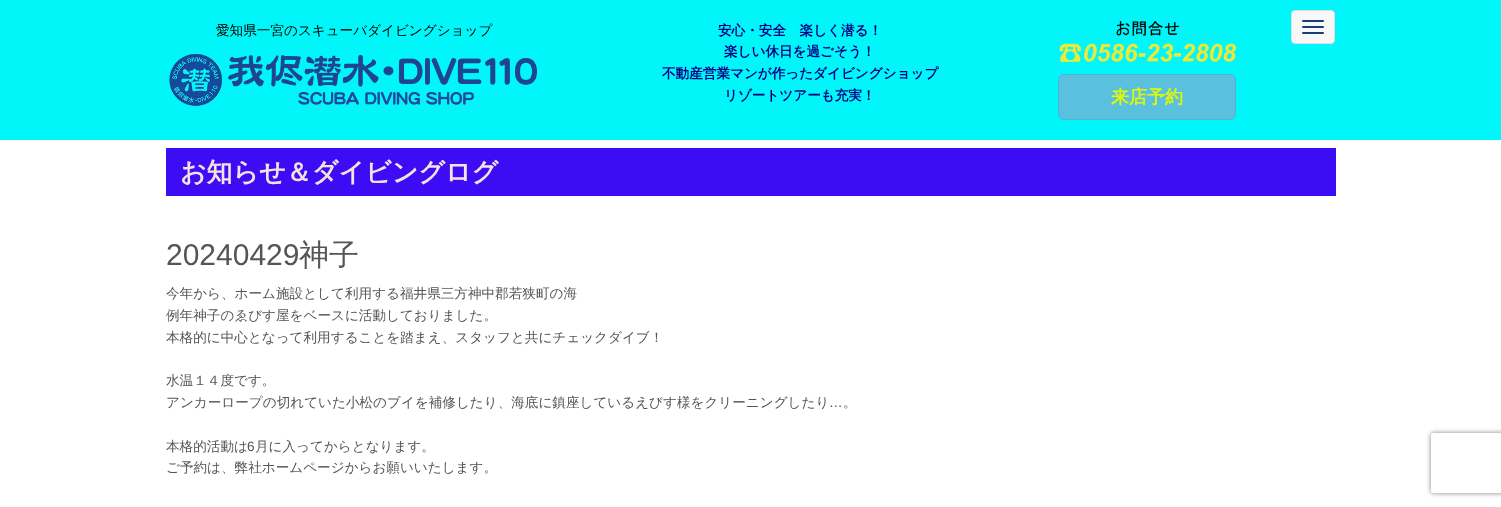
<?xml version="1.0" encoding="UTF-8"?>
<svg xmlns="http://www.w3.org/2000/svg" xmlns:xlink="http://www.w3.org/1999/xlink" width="1501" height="507">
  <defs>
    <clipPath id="clip1"><path d="M 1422 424 h 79 v 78 h -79 z m 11 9 h 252 c 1 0 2 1 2 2 v 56 c 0 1 -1 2 -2 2 h -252 c -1 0 -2 -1 -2 -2 v -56 c 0 -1 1 -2 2 -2 z" clip-rule="evenodd" /></clipPath>
  </defs>
  <rect width="100%" height="100%" fill="#ffffff" />
  <rect width="1501" height="140" fill="#01f6f9" />
  <image x="169" y="54" width="368" height="52" xlink:href="image1.png" />
  <image x="1059" y="20" width="177" height="42" xlink:href="image2.png" />
  <rect x="1058.5" y="74.5" width="177" height="45" rx="5.5" fill="#5bc0de" stroke="#46b8da" />
  <rect x="1291.5" y="10.5" width="43" height="33" rx="3.5" fill="#f8f8f8" stroke="#dddddd" />
  <rect x="1302" y="20" width="22" height="2" rx="1" fill="#193e72" />
  <rect x="1302" y="26" width="22" height="2" rx="1" fill="#193e72" />
  <rect x="1302" y="32" width="22" height="2" rx="1" fill="#193e72" />
  <rect x="166" y="148" width="1170" height="48" fill="#3c0cf5" />
  <g clip-path="url(#clip1)">
    <rect x="1431" y="433" width="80" height="60" rx="2" fill="#808080" filter="blur(2.5px)" />
  </g>
  <text x="216" y="35" style="font-family: WenQuanYi Zen Hei; font-size: 13.6px; font-weight: 500; fill: #000000">愛知県一宮のスキューバダイビングショップ</text>
  <text x="718" y="35" style="font-family: WenQuanYi Zen Hei; font-size: 13.6px; font-weight: bold; fill: #000080">安心・安全　楽しく潜る！</text>
  <text x="724" y="56" style="font-family: WenQuanYi Zen Hei; font-size: 13.6px; font-weight: bold; fill: #000080">楽しい休日を過ごそう！</text>
  <text x="662" y="78" style="font-family: WenQuanYi Zen Hei; font-size: 13.6px; font-weight: bold; fill: #000080">不動産営業マンが作ったダイビングショップ</text>
  <text x="724" y="100" style="font-family: WenQuanYi Zen Hei; font-size: 13.6px; font-weight: bold; fill: #000080">リゾートツアーも充実！</text>
  <text x="1111" y="103" style="font-family: WenQuanYi Zen Hei; font-size: 18px; font-weight: bold; fill: #ddf909">来店予約</text>
  <text x="180" y="181" style="font-family: WenQuanYi Zen Hei; font-size: 26px; font-weight: bold; fill: #f6e1e1">お知らせ＆ダイビングログ</text>
  <text x="166" y="265" style="font-family: Liberation Sans; font-size: 30px; fill: #555555">20240429</text>
  <text x="299" y="265" style="font-family: WenQuanYi Zen Hei; font-size: 30px; font-weight: 500; fill: #555555">神子</text>
  <text x="166" y="298" style="font-family: WenQuanYi Zen Hei; font-size: 13.6px; font-weight: 500; fill: #555555">今年から、ホーム施設として利用する福井県三方神中郡若狭町の海</text>
  <text x="166" y="320" style="font-family: WenQuanYi Zen Hei; font-size: 13.6px; font-weight: 500; fill: #555555">例年神子のゑびす屋をベースに活動しておりました。</text>
  <text x="166" y="342" style="font-family: WenQuanYi Zen Hei; font-size: 13.6px; font-weight: 500; fill: #555555">本格的に中心となって利用することを踏まえ、スタッフと共にチェックダイブ！</text>
  <text x="166" y="385" style="font-family: WenQuanYi Zen Hei; font-size: 13.6px; font-weight: 500; fill: #555555">水温１４度です。</text>
  <text x="166" y="407" style="font-family: WenQuanYi Zen Hei; font-size: 13.6px; font-weight: 500; fill: #555555">アンカーロープの切れていた小松のブイを補修したり、海底に鎮座しているえびす様をクリーニングしたり</text>
  <text x="829" y="407" style="font-family: Liberation Sans; font-size: 13.6px; fill: #555555">…</text>
  <text x="843" y="407" style="font-family: WenQuanYi Zen Hei; font-size: 13.6px; font-weight: 500; fill: #555555">。</text>
  <text x="166" y="451" style="font-family: WenQuanYi Zen Hei; font-size: 13.6px; font-weight: 500; fill: #555555">本格的活動は</text>
  <text x="247" y="451" style="font-family: Liberation Sans; font-size: 13.6px; fill: #555555">6</text>
  <text x="255" y="451" style="font-family: WenQuanYi Zen Hei; font-size: 13.6px; font-weight: 500; fill: #555555">月に入ってからとなります。</text>
  <text x="166" y="472" style="font-family: WenQuanYi Zen Hei; font-size: 13.6px; font-weight: 500; fill: #555555">ご予約は、弊社ホームページからお願いいたします。</text>
</svg>
